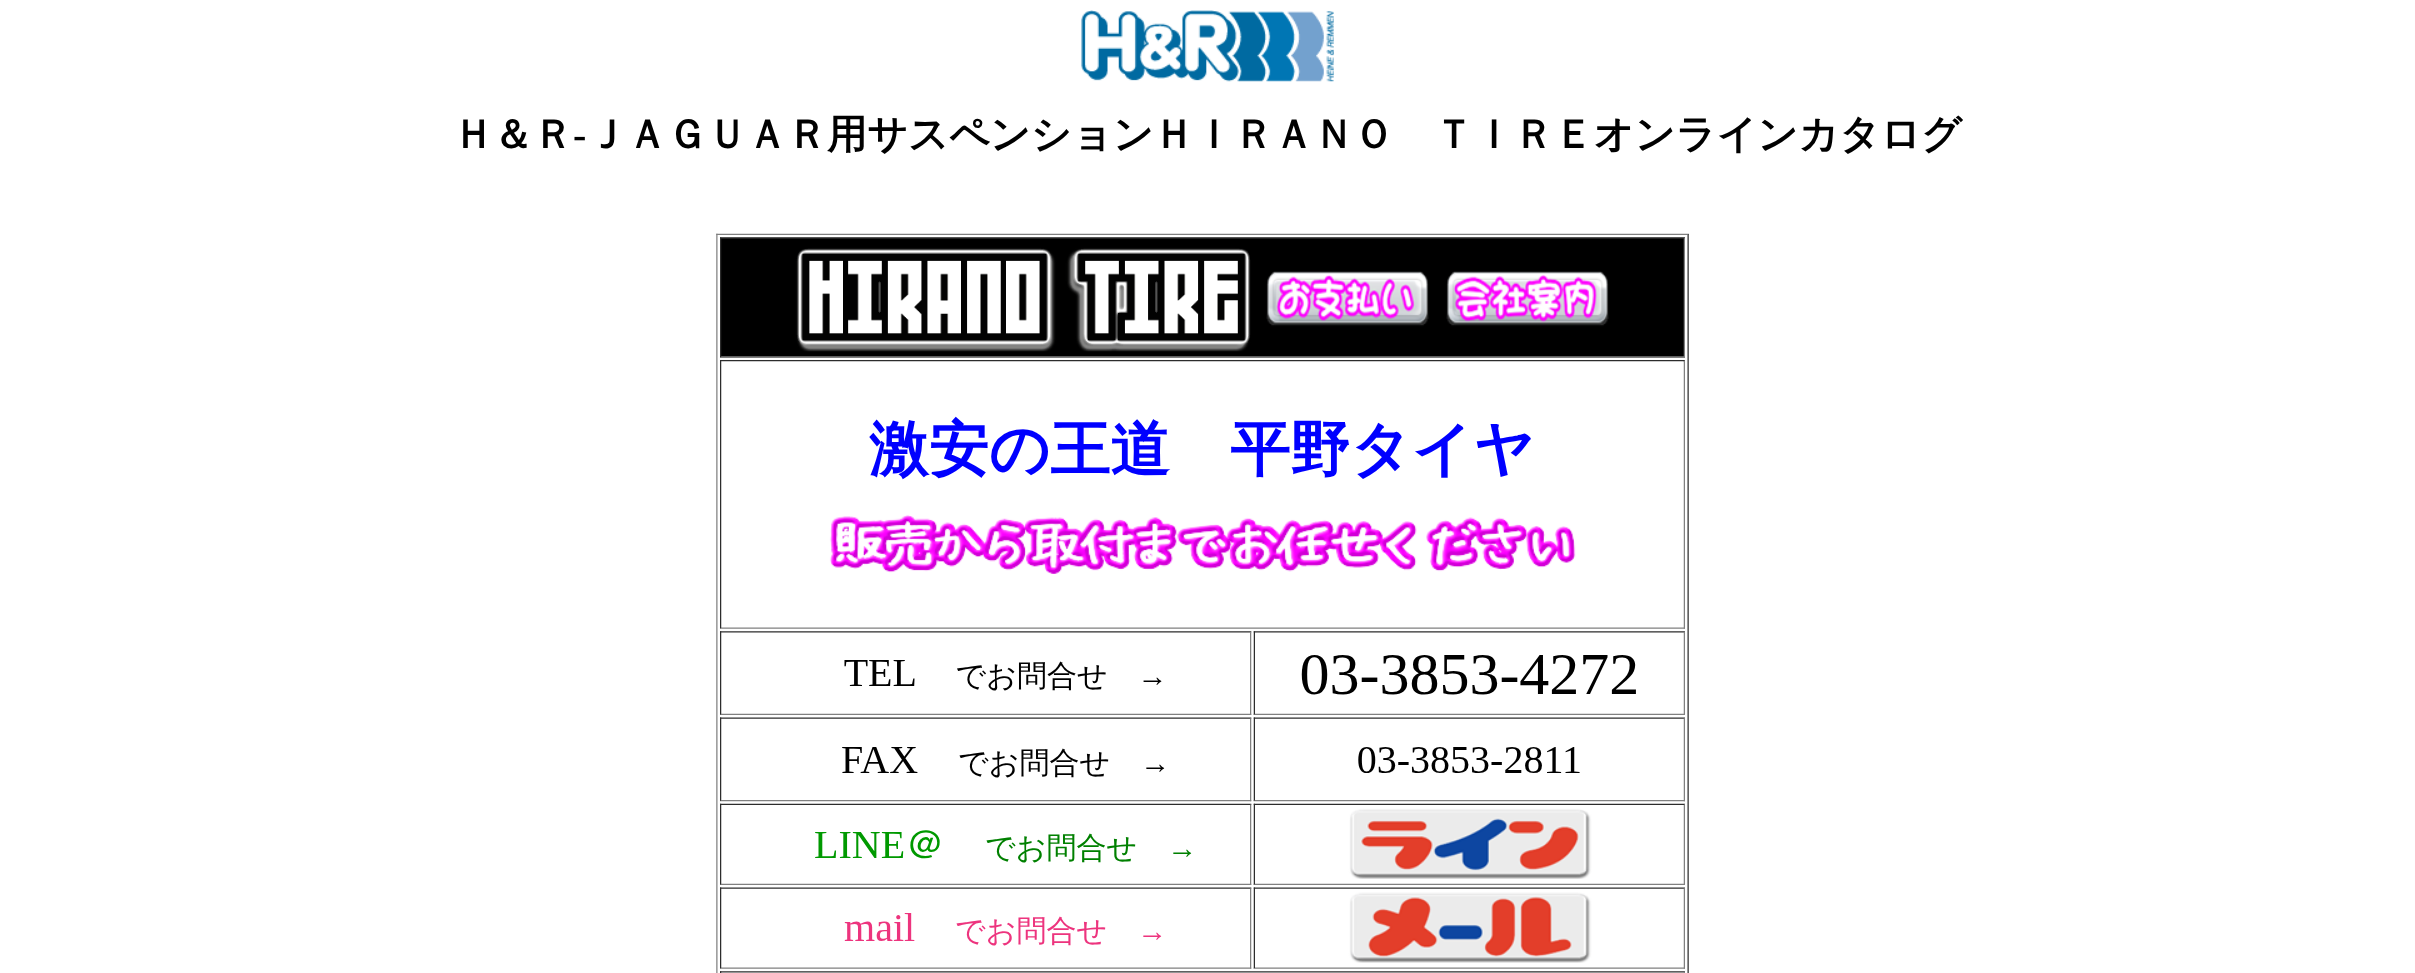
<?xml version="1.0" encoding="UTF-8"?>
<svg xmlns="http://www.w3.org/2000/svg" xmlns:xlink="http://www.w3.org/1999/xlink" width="2415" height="973">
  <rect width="100%" height="100%" fill="#ffffff" />
  <image x="1081" y="10" width="253" height="72" xlink:href="image1.png" />
  <image x="716" y="233" width="973" height="740" xlink:href="image2.png" />
  <text x="453" y="148" style="font-family: WenQuanYi Zen Hei; font-size: 40px; font-weight: bold; fill: #000000">Ｈ＆Ｒ</text>
  <text x="573" y="148" style="font-family: Liberation Serif; font-size: 40px; font-weight: bold; fill: #000000">-</text>
  <text x="587" y="148" style="font-family: WenQuanYi Zen Hei; font-size: 40px; font-weight: bold; fill: #000000">ＪＡＧＵＡＲ用サスペンションＨＩＲＡＮＯ　ＴＩＲＥオンラインカタログ</text>
</svg>
